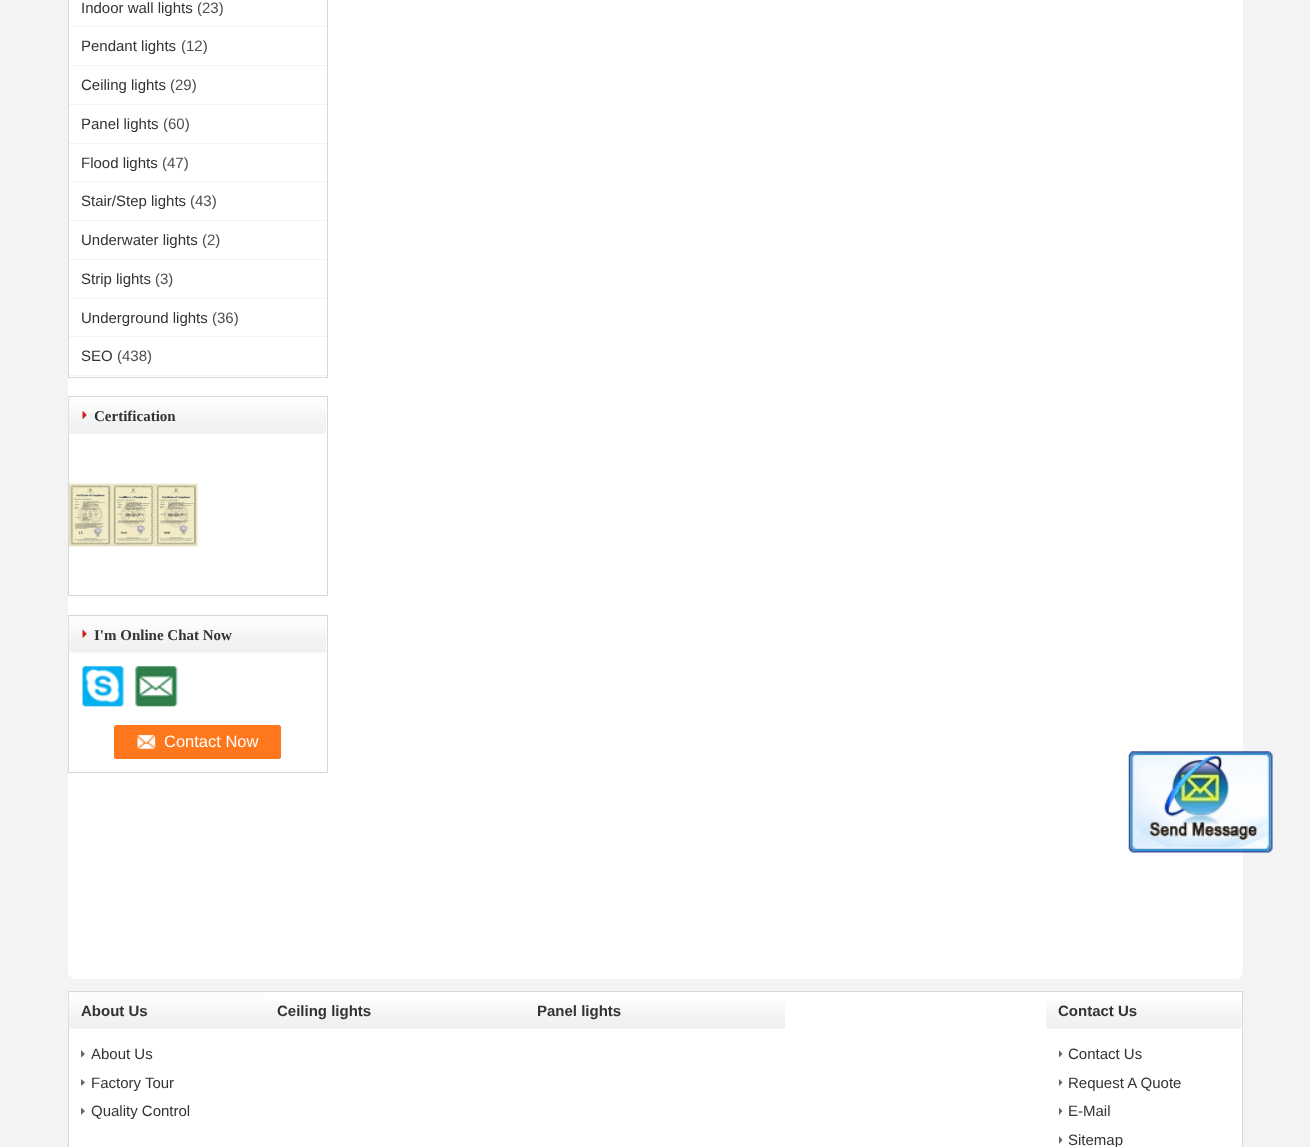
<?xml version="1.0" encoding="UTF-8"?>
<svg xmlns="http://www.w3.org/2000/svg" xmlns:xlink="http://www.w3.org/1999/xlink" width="1310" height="1147">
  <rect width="100%" height="100%" fill="#f3f3f3" />
  <path d="M 68 -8 h 1175 v 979 c 0 4.5 -3.5 8 -8 8 h -1159 c -4.5 0 -8 -3.5 -8 -8 z" fill="#ffffff" />
  <rect x="68.5" y="-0.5" width="259" height="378" fill="none" stroke="#d8d8d8" />
  <rect x="69" y="26" width="257" height="1" fill="#f0f4f6" />
  <rect x="69" y="65" width="257" height="1" fill="#f0f4f6" />
  <rect x="69" y="104" width="257" height="1" fill="#f0f4f6" />
  <rect x="69" y="143" width="257" height="1" fill="#f0f4f6" />
  <rect x="69" y="181" width="257" height="1" fill="#f0f4f6" />
  <rect x="69" y="220" width="257" height="1" fill="#f0f4f6" />
  <rect x="69" y="259" width="257" height="1" fill="#f0f4f6" />
  <rect x="69" y="298" width="257" height="1" fill="#f0f4f6" />
  <rect x="69" y="336" width="257" height="1" fill="#f0f4f6" />
  <rect x="69" y="375" width="257" height="1" fill="#f0f4f6" />
  <rect x="68.5" y="396.5" width="259" height="199" fill="none" stroke="#d8d8d8" />
  <image x="68" y="397" width="259" height="37" xlink:href="image1.png" />
  <image x="82" y="411" width="5" height="8" xlink:href="image2.png" />
  <image x="68" y="483" width="130" height="64" xlink:href="image3.png" />
  <rect x="68.5" y="615.5" width="259" height="157" fill="none" stroke="#d8d8d8" />
  <image x="68" y="616" width="259" height="37" xlink:href="image4.png" />
  <image x="82" y="629" width="5" height="9" xlink:href="image5.png" />
  <image x="82" y="666" width="43" height="41" xlink:href="image6.png" />
  <image x="135" y="666" width="43" height="41" xlink:href="image7.png" />
  <rect x="114" y="725" width="167" height="34" rx="2.5" fill="#ff771c" />
  <image x="137" y="734" width="19" height="15" xlink:href="image8.png" />
  <rect x="68.5" y="991.5" width="1174" height="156" fill="#ffffff" stroke="#d8d8d8" />
  <image x="68" y="992" width="196" height="37" xlink:href="image9.png" />
  <path d="M 81 1057.5 v -7.5 l 4 4 z" fill="#666666" />
  <path d="M 81 1086 v -7 l 4 3.5 z" fill="#666666" />
  <path d="M 81 1115 v -7.5 l 4 3.5 z" fill="#666666" />
  <image x="264" y="1001" width="261" height="28" xlink:href="image10.png" />
  <image x="525" y="1001" width="260" height="28" xlink:href="image11.png" />
  <image x="1046" y="1001" width="196" height="28" xlink:href="image12.png" />
  <path d="M 1059 1057.5 v -7.5 l 3.5 4 z" fill="#666666" />
  <path d="M 1059 1086 v -7 l 3.5 3.5 z" fill="#666666" />
  <path d="M 1059 1115 v -7.5 l 3.5 3.5 z" fill="#666666" />
  <path d="M 1059 1144 v -8 l 3.5 4 z" fill="#666666" />
  <image x="1128" y="751" width="145" height="102" xlink:href="image13.png" />
  <text x="81" y="13" style="font-family: Liberation Sans; font-size: 15px; fill: #333333">Indoor wall lights</text>
  <text x="197" y="13" style="font-family: Liberation Sans; font-size: 15px; fill: #4e4e4e">(23)</text>
  <text x="81" y="51" style="font-family: Liberation Sans; font-size: 15px; fill: #333333">Pendant lights</text>
  <text x="181" y="51" style="font-family: Liberation Sans; font-size: 15px; fill: #4e4e4e">(12)</text>
  <text x="81" y="90" style="font-family: Liberation Sans; font-size: 15px; fill: #333333">Ceiling lights</text>
  <text x="170" y="90" style="font-family: Liberation Sans; font-size: 15px; fill: #4e4e4e">(29)</text>
  <text x="81" y="129" style="font-family: Liberation Sans; font-size: 15px; fill: #333333">Panel lights</text>
  <text x="163" y="129" style="font-family: Liberation Sans; font-size: 15px; fill: #4e4e4e">(60)</text>
  <text x="81" y="168" style="font-family: Liberation Sans; font-size: 15px; fill: #333333">Flood lights</text>
  <text x="162" y="168" style="font-family: Liberation Sans; font-size: 15px; fill: #4e4e4e">(47)</text>
  <text x="81" y="206" style="font-family: Liberation Sans; font-size: 15px; fill: #333333">Stair/Step lights</text>
  <text x="190" y="206" style="font-family: Liberation Sans; font-size: 15px; fill: #4e4e4e">(43)</text>
  <text x="81" y="245" style="font-family: Liberation Sans; font-size: 15px; fill: #333333">Underwater lights</text>
  <text x="202" y="245" style="font-family: Liberation Sans; font-size: 15px; fill: #4e4e4e">(2)</text>
  <text x="81" y="284" style="font-family: Liberation Sans; font-size: 15px; fill: #333333">Strip lights</text>
  <text x="155" y="284" style="font-family: Liberation Sans; font-size: 15px; fill: #4e4e4e">(3)</text>
  <text x="81" y="323" style="font-family: Liberation Sans; font-size: 15px; fill: #333333">Underground lights</text>
  <text x="212" y="323" style="font-family: Liberation Sans; font-size: 15px; fill: #4e4e4e">(36)</text>
  <text x="81" y="361" style="font-family: Liberation Sans; font-size: 15px; fill: #333333">SEO</text>
  <text x="117" y="361" style="font-family: Liberation Sans; font-size: 15px; fill: #4e4e4e">(438)</text>
  <text x="94" y="421" style="font-family: Liberation Serif; font-size: 15px; font-weight: bold; fill: #333333">Certification</text>
  <text x="94" y="640" style="font-family: Liberation Serif; font-size: 15px; font-weight: bold; fill: #333333">I'm Online Chat Now</text>
  <text x="164" y="747" style="font-family: Liberation Sans; font-size: 16.5px; fill: #ffffff">Contact Now</text>
  <text x="81" y="1016" style="font-family: Liberation Sans; font-size: 15px; font-weight: bold; fill: #333333">About Us</text>
  <text x="91" y="1059" style="font-family: Liberation Sans; font-size: 15px; fill: #333333">About Us</text>
  <text x="91" y="1088" style="font-family: Liberation Sans; font-size: 15px; fill: #333333">Factory Tour</text>
  <text x="91" y="1116" style="font-family: Liberation Sans; font-size: 15px; fill: #333333">Quality Control</text>
  <text x="277" y="1016" style="font-family: Liberation Sans; font-size: 15px; font-weight: bold; fill: #333333">Ceiling lights</text>
  <text x="537" y="1016" style="font-family: Liberation Sans; font-size: 15px; font-weight: bold; fill: #333333">Panel lights</text>
  <text x="1058" y="1016" style="font-family: Liberation Sans; font-size: 15px; font-weight: bold; fill: #333333">Contact Us</text>
  <text x="1068" y="1059" style="font-family: Liberation Sans; font-size: 15px; fill: #333333">Contact Us</text>
  <text x="1068" y="1088" style="font-family: Liberation Sans; font-size: 15px; fill: #333333">Request A Quote</text>
  <text x="1068" y="1116" style="font-family: Liberation Sans; font-size: 15px; fill: #333333">E-Mail</text>
  <text x="1068" y="1145" style="font-family: Liberation Sans; font-size: 15px; fill: #333333">Sitemap</text>
</svg>
